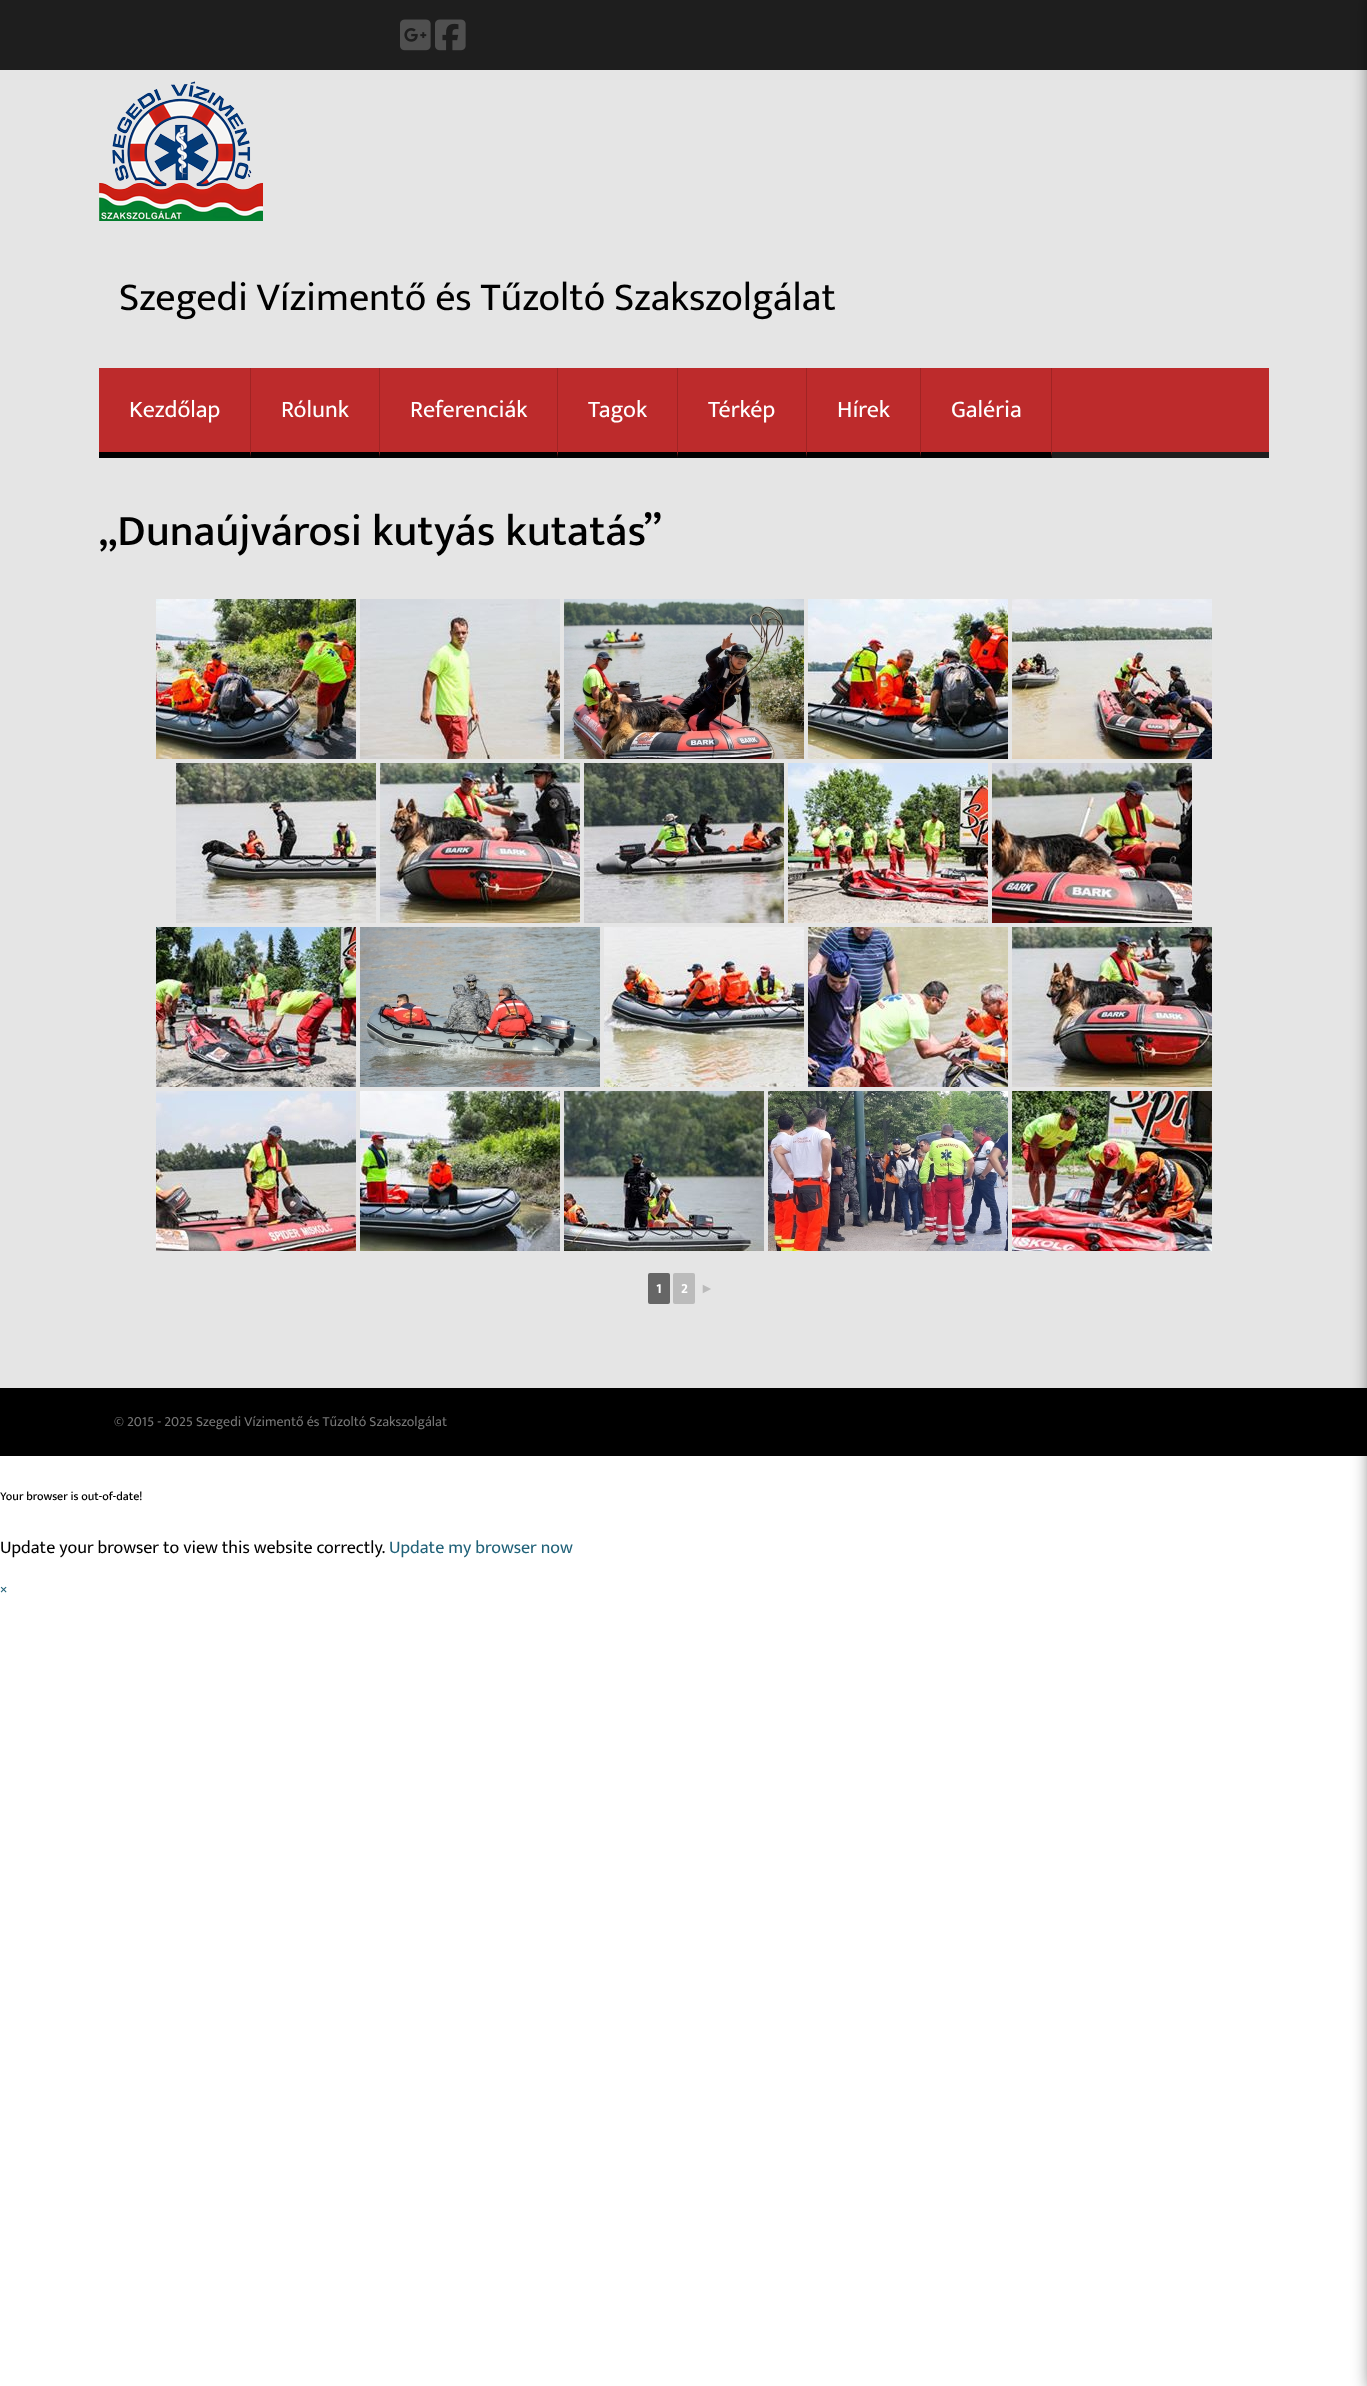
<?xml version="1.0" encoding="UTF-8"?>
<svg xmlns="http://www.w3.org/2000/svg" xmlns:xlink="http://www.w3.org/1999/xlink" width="1367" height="2386">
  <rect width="100%" height="100%" fill="#ffffff" />
  <rect y="70" width="1367" height="1318" fill="#e5e5e5" />
  <rect width="1367" height="70" fill="#1e1e1e" />
  <image x="400" y="19" width="31" height="32" xlink:href="image1.png" />
  <image x="435" y="19" width="31" height="32" xlink:href="image2.png" />
  <image x="99" y="81" width="164" height="140" xlink:href="image3.png" />
  <image x="99" y="368" width="1170" height="90" xlink:href="image4.png" />
  <path d="M 251 368 v 90 l -1 -6 v -84 z" fill="#a02424" />
  <path d="M 251 458 h -152 v -6 h 151 z" fill="#000000" />
  <path d="M 380 368 v 90 l -1 -6 v -84 z" fill="#a02424" />
  <path d="M 380 458 h -129 v -6 h 128 z" fill="#000000" />
  <path d="M 558 368 v 90 l -1 -6 v -84 z" fill="#a02424" />
  <path d="M 558 458 h -178 v -6 h 177 z" fill="#000000" />
  <path d="M 678 368 v 90 l -1 -6 v -84 z" fill="#a02424" />
  <path d="M 678 458 h -120 v -6 h 119 z" fill="#000000" />
  <path d="M 807 368 v 90 l -1 -6 v -84 z" fill="#a02424" />
  <path d="M 807 458 h -129 v -6 h 128 z" fill="#000000" />
  <path d="M 921 368 v 90 l -1 -6 v -84 z" fill="#a02424" />
  <path d="M 921 458 h -114 v -6 h 113 z" fill="#000000" />
  <path d="M 1052 368 v 90 l -1 -6 v -84 z" fill="#a02424" />
  <path d="M 1052 458 h -131 v -6 h 130 z" fill="#000000" />
  <image x="156" y="599" width="200" height="160" xlink:href="image5.png" />
  <image x="360" y="599" width="200" height="160" xlink:href="image6.png" />
  <image x="564" y="599" width="240" height="160" xlink:href="image7.png" />
  <image x="808" y="599" width="200" height="160" xlink:href="image8.png" />
  <image x="1012" y="599" width="200" height="160" xlink:href="image9.png" />
  <image x="176" y="763" width="200" height="160" xlink:href="image10.png" />
  <image x="380" y="763" width="200" height="160" xlink:href="image11.png" />
  <image x="584" y="763" width="200" height="160" xlink:href="image12.png" />
  <image x="788" y="763" width="200" height="160" xlink:href="image13.png" />
  <image x="992" y="763" width="200" height="160" xlink:href="image14.png" />
  <image x="156" y="927" width="200" height="160" xlink:href="image15.png" />
  <image x="360" y="927" width="240" height="160" xlink:href="image16.png" />
  <image x="604" y="927" width="200" height="160" xlink:href="image17.png" />
  <image x="808" y="927" width="200" height="160" xlink:href="image18.png" />
  <image x="1012" y="927" width="200" height="160" xlink:href="image19.png" />
  <image x="156" y="1091" width="200" height="160" xlink:href="image20.png" />
  <image x="360" y="1091" width="200" height="160" xlink:href="image21.png" />
  <image x="564" y="1091" width="200" height="160" xlink:href="image22.png" />
  <image x="768" y="1091" width="240" height="160" xlink:href="image23.png" />
  <image x="1012" y="1091" width="200" height="160" xlink:href="image24.png" />
  <rect x="648" y="1273" width="22" height="31" rx="2" fill="#666666" />
  <rect x="673" y="1273" width="22" height="31" rx="2" fill="#bbbbbb" />
  <rect y="1388" width="1367" height="68" fill="#000000" />
  <rect x="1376" y="-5" width="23" height="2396" fill="#000000" filter="blur(10.5px)" />
  <text x="119" y="310" style="font-family: Ek Mukta; font-size: 40px; fill: #000000">Szegedi Vízimentő és Tűzoltó Szakszolgálat</text>
  <text x="129" y="417" style="font-family: Ek Mukta; font-size: 24px; fill: #ffffff">Kezdőlap</text>
  <text x="281" y="417" style="font-family: Ek Mukta; font-size: 24px; fill: #ffffff">Rólunk</text>
  <text x="410" y="417" style="font-family: Ek Mukta; font-size: 24px; fill: #ffffff">Referenciák</text>
  <text x="588" y="417" style="font-family: Ek Mukta; font-size: 24px; fill: #ffffff">Tagok</text>
  <text x="708" y="417" style="font-family: Ek Mukta; font-size: 24px; fill: #ffffff">Térkép</text>
  <text x="837" y="417" style="font-family: Ek Mukta; font-size: 24px; fill: #ffffff">Hírek</text>
  <text x="951" y="417" style="font-family: Ek Mukta; font-size: 24px; fill: #ffffff">Galéria</text>
  <text x="99" y="545" style="font-family: Ek Mukta; font-size: 44px; font-weight: 500; fill: #000000">„Dunaújvárosi kutyás kutatás”</text>
  <text x="656" y="1293" style="font-family: Ek Mukta; font-size: 14px; font-weight: bold; fill: #ffffff">1</text>
  <text x="681" y="1293" style="font-family: Ek Mukta; font-size: 14px; font-weight: bold; fill: #ffffff">2</text>
  <text x="700" y="1293" style="font-family: Liberation Sans; font-size: 14px; font-weight: bold; fill: #bbbbbb">►</text>
  <text x="114" y="1426" style="font-family: Ek Mukta; font-size: 14px; fill: #777777">© 2015 - 2025 Szegedi Vízimentő és Tűzoltó Szakszolgálat</text>
  <text x="0" y="1500" style="font-family: Ek Mukta; font-size: 12px; font-weight: 500; fill: #000000">Your browser is out-of-date!</text>
  <text x="0" y="1553" style="font-family: Ek Mukta; font-size: 18px; fill: #000000">Update your browser to view this website correctly.</text>
  <text x="389" y="1553" style="font-family: Ek Mukta; font-size: 18px; fill: #216279">Update my browser now</text>
  <text x="0" y="1595" style="font-family: Ek Mukta; font-size: 18px; fill: #216279">×</text>
</svg>
